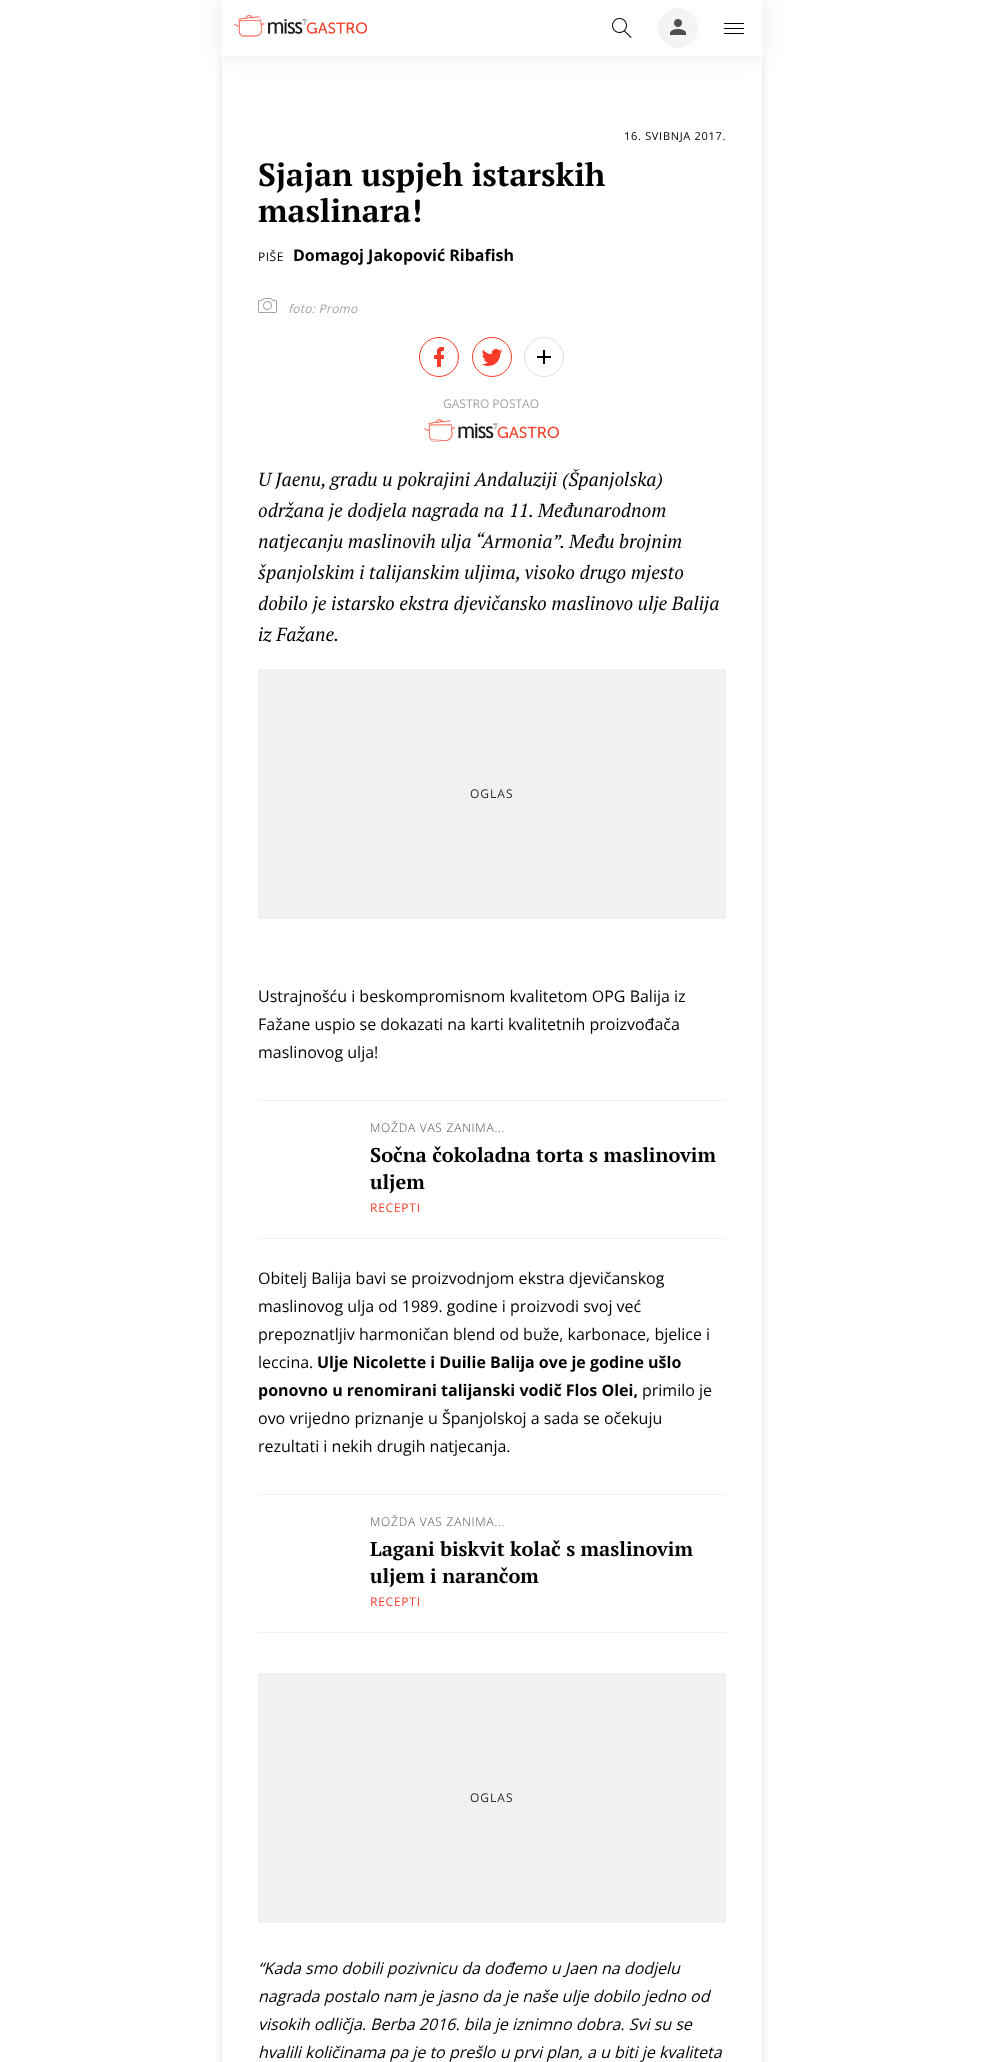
<?xml version="1.0" encoding="UTF-8"?>
<svg xmlns="http://www.w3.org/2000/svg" xmlns:xlink="http://www.w3.org/1999/xlink" width="983" height="2062">
  <defs>
    <clipPath id="clip1"><path d="M 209 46 h 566 v 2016 h -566 z m 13 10 h 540 v 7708 h -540 z" clip-rule="evenodd" /></clipPath>
  </defs>
  <rect width="100%" height="100%" fill="#ffffff" />
  <rect x="221" y="-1" width="542" height="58" fill="#000000" fill-opacity="0.08" filter="blur(10.5px)" />
  <g clip-path="url(#clip1)">
    <rect x="222" y="59" width="540" height="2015" fill="#000000" fill-opacity="0.13" filter="blur(4px)" />
  </g>
  <rect x="222" width="540" height="56" fill="#ffffff" />
  <image x="234" y="15" width="133" height="22" xlink:href="image1.png" />
  <image x="612" y="18" width="20" height="20" xlink:href="image2.png" />
  <circle cx="678" cy="28" r="20" fill="#f4f4f4" />
  <image x="670" y="19" width="16" height="16" xlink:href="image3.png" />
  <image x="724" y="23" width="20" height="11" xlink:href="image4.png" />
  <image x="258" y="298" width="19" height="15" xlink:href="image5.png" />
  <circle cx="439" cy="357" r="19.5" fill="none" stroke="#f63c29" />
  <image x="434" y="347" width="10" height="20" xlink:href="image6.png" />
  <circle cx="492" cy="357" r="19.5" fill="none" stroke="#f63c29" />
  <image x="481" y="349" width="22" height="17" xlink:href="image7.png" />
  <circle cx="544" cy="357" r="19.5" fill="none" stroke="#e0e0e0" />
  <image x="537" y="350" width="14" height="14" xlink:href="image8.png" />
  <image x="424" y="419" width="135" height="23" xlink:href="image9.png" />
  <rect x="258" y="669" width="468" height="250" fill="#f1f1f1" />
  <rect x="258" y="1100" width="468" height="1" fill="#f1f1f1" />
  <rect x="258" y="1238" width="468" height="1" fill="#f1f1f1" />
  <rect x="258" y="1494" width="468" height="1" fill="#f1f1f1" />
  <rect x="258" y="1632" width="468" height="1" fill="#f1f1f1" />
  <rect x="258" y="1673" width="468" height="250" fill="#f1f1f1" />
  <text x="624" y="140" style="font-family: Open Sans; font-size: 11px; letter-spacing: 0.7px; fill: #020202">16. SVIBNJA 2017.</text>
  <text x="258" y="186" style="font-family: PT Serif; font-size: 32px; font-weight: bold; fill: #020202">Sjajan uspjeh istarskih</text>
  <text x="258" y="222" style="font-family: PT Serif; font-size: 32px; font-weight: bold; fill: #020202">maslinara!</text>
  <text x="258" y="261" style="font-family: Open Sans; font-size: 12px; letter-spacing: 0.5px; fill: #020202">PIŠE</text>
  <text x="293" y="261" style="font-family: Open Sans; font-size: 16px; font-weight: bold; fill: #020202">Domagoj Jakopović Ribafish</text>
  <text x="288" y="313" style="font-family: Open Sans; font-size: 12px; font-style: italic; letter-spacing: 0.25px; fill: #a3a3a3">foto: Promo</text>
  <text x="443" y="408" style="font-family: Open Sans; font-size: 12px; fill: #a3a3a3">GASTRO POSTAO</text>
  <text x="258" y="486" style="font-family: PT Serif; font-size: 19px; font-style: italic; fill: #020202">U Jaenu, gradu u pokrajini Andaluziji (Španjolska)</text>
  <text x="258" y="517" style="font-family: PT Serif; font-size: 19px; font-style: italic; fill: #020202">održana je dodjela nagrada na 11. Međunarodnom</text>
  <text x="258" y="548" style="font-family: PT Serif; font-size: 19px; font-style: italic; fill: #020202">natjecanju maslinovih ulja “Armonia”. Među brojnim</text>
  <text x="258" y="579" style="font-family: PT Serif; font-size: 19px; font-style: italic; fill: #020202">španjolskim i talijanskim uljima, visoko drugo mjesto</text>
  <text x="258" y="610" style="font-family: PT Serif; font-size: 19px; font-style: italic; fill: #020202">dobilo je istarsko ekstra djevičansko maslinovo ulje Balija</text>
  <text x="258" y="641" style="font-family: PT Serif; font-size: 19px; font-style: italic; fill: #020202">iz Fažane.</text>
  <text x="470" y="798" style="font-family: Open Sans; font-size: 12px; letter-spacing: 1px; fill: #2b2b2b">OGLAS</text>
  <text x="258" y="1002" style="font-family: Open Sans; font-size: 16px; fill: #020202">Ustrajnošću i beskompromisnom kvalitetom OPG Balija iz</text>
  <text x="258" y="1030" style="font-family: Open Sans; font-size: 16px; fill: #020202">Fažane uspio se dokazati na karti kvalitetnih proizvođača</text>
  <text x="258" y="1058" style="font-family: Open Sans; font-size: 16px; fill: #020202">maslinovog ulja!</text>
  <text x="370" y="1132" style="font-family: Open Sans; font-size: 12px; font-weight: 300; letter-spacing: 0.75px; fill: #4f4f4f">MOŽDA VAS ZANIMA...</text>
  <text x="370" y="1162" style="font-family: PT Serif; font-size: 20px; font-weight: bold; fill: #020202">Sočna čokoladna torta s maslinovim</text>
  <text x="370" y="1189" style="font-family: PT Serif; font-size: 20px; font-weight: bold; fill: #020202">uljem</text>
  <text x="370" y="1212" style="font-family: Open Sans; font-size: 12px; letter-spacing: 0.75px; fill: #f63c29">RECEPTI</text>
  <text x="258" y="1284" style="font-family: Open Sans; font-size: 16px; fill: #020202">Obitelj Balija bavi se proizvodnjom ekstra djevičanskog</text>
  <text x="258" y="1312" style="font-family: Open Sans; font-size: 16px; fill: #020202">maslinovog ulja od 1989. godine i proizvodi svoj već</text>
  <text x="258" y="1340" style="font-family: Open Sans; font-size: 16px; fill: #020202">prepoznatljiv harmoničan blend od buže, karbonace, bjelice i</text>
  <text x="258" y="1368" style="font-family: Open Sans; font-size: 16px; fill: #020202">leccina.</text>
  <text x="317" y="1368" style="font-family: Open Sans; font-size: 16px; font-weight: bold; fill: #020202">Ulje Nicolette i Duilie Balija ove je godine ušlo</text>
  <text x="258" y="1396" style="font-family: Open Sans; font-size: 16px; font-weight: bold; fill: #020202">ponovno u renomirani talijanski vodič Flos Olei,</text>
  <text x="642" y="1396" style="font-family: Open Sans; font-size: 16px; fill: #020202">primilo je</text>
  <text x="258" y="1424" style="font-family: Open Sans; font-size: 16px; fill: #020202">ovo vrijedno priznanje u Španjolskoj a sada se očekuju</text>
  <text x="258" y="1452" style="font-family: Open Sans; font-size: 16px; fill: #020202">rezultati i nekih drugih natjecanja.</text>
  <text x="370" y="1526" style="font-family: Open Sans; font-size: 12px; font-weight: 300; letter-spacing: 0.75px; fill: #4f4f4f">MOŽDA VAS ZANIMA...</text>
  <text x="370" y="1556" style="font-family: PT Serif; font-size: 20px; font-weight: bold; fill: #020202">Lagani biskvit kolač s maslinovim</text>
  <text x="370" y="1583" style="font-family: PT Serif; font-size: 20px; font-weight: bold; fill: #020202">uljem i narančom</text>
  <text x="370" y="1606" style="font-family: Open Sans; font-size: 12px; letter-spacing: 0.75px; fill: #f63c29">RECEPTI</text>
  <text x="470" y="1802" style="font-family: Open Sans; font-size: 12px; letter-spacing: 1px; fill: #2b2b2b">OGLAS</text>
  <text x="258" y="1974" style="font-family: Open Sans; font-size: 16px; font-style: italic; fill: #020202">“Kada smo dobili pozivnicu da dođemo u Jaen na dodjelu</text>
  <text x="258" y="2002" style="font-family: Open Sans; font-size: 16px; font-style: italic; fill: #020202">nagrada postalo nam je jasno da je naše ulje dobilo jedno od</text>
  <text x="258" y="2030" style="font-family: Open Sans; font-size: 16px; font-style: italic; fill: #020202">visokih odličja. Berba 2016. bila je iznimno dobra. Svi su se</text>
  <text x="258" y="2058" style="font-family: Open Sans; font-size: 16px; font-style: italic; fill: #020202">hvalili količinama pa je to prešlo u prvi plan, a u biti je kvaliteta</text>
</svg>
